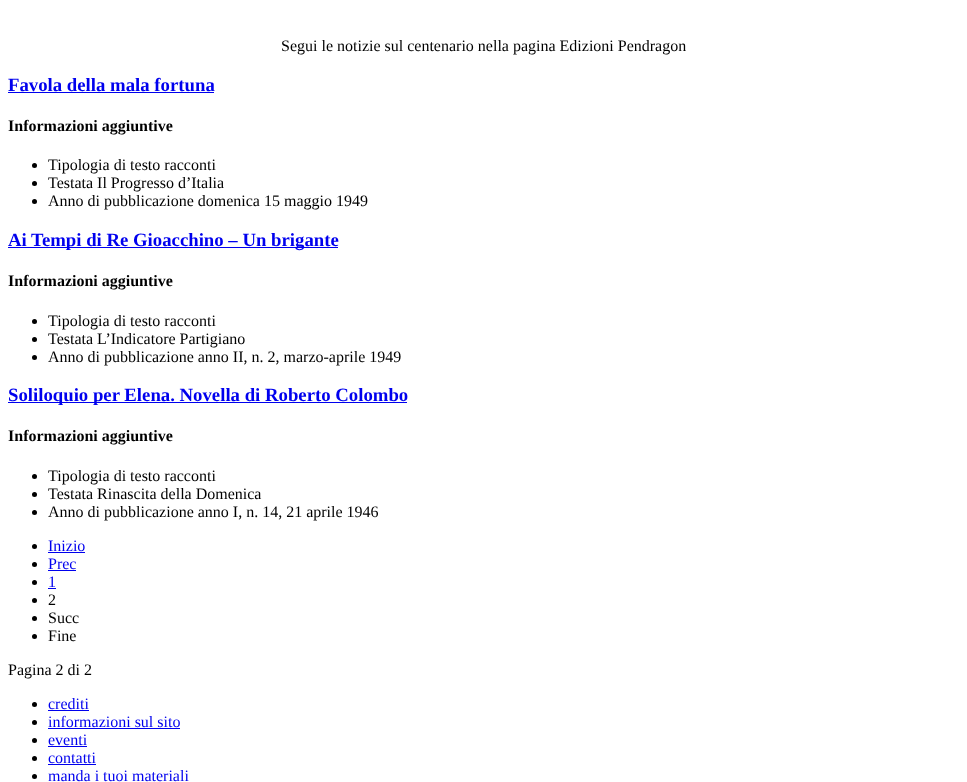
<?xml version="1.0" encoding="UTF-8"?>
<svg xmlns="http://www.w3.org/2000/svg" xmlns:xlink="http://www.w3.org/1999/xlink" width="967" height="782">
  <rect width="100%" height="100%" fill="#ffffff" />
  <rect x="8" y="92" width="206" height="1" fill="#0000ee" />
  <circle cx="34.5" cy="165.5" r="2.5" fill="#000000" />
  <circle cx="34.5" cy="183.5" r="2.5" fill="#000000" />
  <circle cx="34.5" cy="201.5" r="2.5" fill="#000000" />
  <rect x="8" y="247" width="330" height="1" fill="#0000ee" />
  <circle cx="34.5" cy="321.5" r="2.5" fill="#000000" />
  <circle cx="34.5" cy="339.5" r="2.5" fill="#000000" />
  <circle cx="34.5" cy="357.5" r="2.5" fill="#000000" />
  <rect x="8" y="402" width="399" height="1" fill="#0000ee" />
  <circle cx="34.5" cy="476.5" r="2.5" fill="#000000" />
  <circle cx="34.5" cy="494.5" r="2.5" fill="#000000" />
  <circle cx="34.5" cy="512.5" r="2.5" fill="#000000" />
  <circle cx="34.5" cy="546.5" r="2.5" fill="#000000" />
  <rect x="48" y="552" width="37" height="1" fill="#0000ee" />
  <circle cx="34.5" cy="564.5" r="2.5" fill="#000000" />
  <rect x="48" y="570" width="28" height="1" fill="#0000ee" />
  <circle cx="34.5" cy="582.5" r="2.5" fill="#000000" />
  <rect x="48" y="588" width="8" height="1" fill="#0000ee" />
  <circle cx="34.5" cy="600.5" r="2.5" fill="#000000" />
  <circle cx="34.5" cy="618.5" r="2.5" fill="#000000" />
  <circle cx="34.5" cy="636.5" r="2.5" fill="#000000" />
  <circle cx="34.5" cy="704.5" r="2.5" fill="#000000" />
  <rect x="48" y="710" width="41" height="1" fill="#0000ee" />
  <circle cx="34.5" cy="722.5" r="2.5" fill="#000000" />
  <rect x="48" y="728" width="132" height="1" fill="#0000ee" />
  <circle cx="34.5" cy="740.5" r="2.5" fill="#000000" />
  <rect x="48" y="746" width="39" height="1" fill="#0000ee" />
  <circle cx="34.5" cy="758.5" r="2.5" fill="#000000" />
  <rect x="48" y="764" width="48" height="1" fill="#0000ee" />
  <circle cx="34.5" cy="776.5" r="2.5" fill="#000000" />
  <text x="281" y="51" style="font-family: Liberation Serif; font-size: 16px; fill: #000000">Segui le notizie sul centenario nella pagina Edizioni Pendragon</text>
  <text x="8" y="91" style="font-family: Liberation Serif; font-size: 18.75px; font-weight: bold; fill: #0000ee">Favola della mala fortuna</text>
  <text x="8" y="131" style="font-family: Liberation Serif; font-size: 16px; font-weight: bold; fill: #000000">Informazioni aggiuntive</text>
  <text x="48" y="170" style="font-family: Liberation Serif; font-size: 16px; fill: #000000">Tipologia di testo racconti</text>
  <text x="48" y="188" style="font-family: Liberation Serif; font-size: 16px; fill: #000000">Testata Il Progresso d’Italia</text>
  <text x="48" y="206" style="font-family: Liberation Serif; font-size: 16px; fill: #000000">Anno di pubblicazione domenica 15 maggio 1949</text>
  <text x="8" y="246" style="font-family: Liberation Serif; font-size: 18.75px; font-weight: bold; fill: #0000ee">Ai Tempi di Re Gioacchino – Un brigante</text>
  <text x="8" y="286" style="font-family: Liberation Serif; font-size: 16px; font-weight: bold; fill: #000000">Informazioni aggiuntive</text>
  <text x="48" y="326" style="font-family: Liberation Serif; font-size: 16px; fill: #000000">Tipologia di testo racconti</text>
  <text x="48" y="344" style="font-family: Liberation Serif; font-size: 16px; fill: #000000">Testata L’Indicatore Partigiano</text>
  <text x="48" y="362" style="font-family: Liberation Serif; font-size: 16px; fill: #000000">Anno di pubblicazione anno II, n. 2, marzo-aprile 1949</text>
  <text x="8" y="401" style="font-family: Liberation Serif; font-size: 18.75px; font-weight: bold; fill: #0000ee">Soliloquio per Elena. Novella di Roberto Colombo</text>
  <text x="8" y="441" style="font-family: Liberation Serif; font-size: 16px; font-weight: bold; fill: #000000">Informazioni aggiuntive</text>
  <text x="48" y="481" style="font-family: Liberation Serif; font-size: 16px; fill: #000000">Tipologia di testo racconti</text>
  <text x="48" y="499" style="font-family: Liberation Serif; font-size: 16px; fill: #000000">Testata Rinascita della Domenica</text>
  <text x="48" y="517" style="font-family: Liberation Serif; font-size: 16px; fill: #000000">Anno di pubblicazione anno I, n. 14, 21 aprile 1946</text>
  <text x="48" y="551" style="font-family: Liberation Serif; font-size: 16px; fill: #0000ee">Inizio</text>
  <text x="48" y="569" style="font-family: Liberation Serif; font-size: 16px; fill: #0000ee">Prec</text>
  <text x="48" y="587" style="font-family: Liberation Serif; font-size: 16px; fill: #0000ee">1</text>
  <text x="48" y="605" style="font-family: Liberation Serif; font-size: 16px; fill: #000000">2</text>
  <text x="48" y="623" style="font-family: Liberation Serif; font-size: 16px; fill: #000000">Succ</text>
  <text x="48" y="641" style="font-family: Liberation Serif; font-size: 16px; fill: #000000">Fine</text>
  <text x="8" y="675" style="font-family: Liberation Serif; font-size: 16px; fill: #000000">Pagina 2 di 2</text>
  <text x="48" y="709" style="font-family: Liberation Serif; font-size: 16px; fill: #0000ee">crediti</text>
  <text x="48" y="727" style="font-family: Liberation Serif; font-size: 16px; fill: #0000ee">informazioni sul sito</text>
  <text x="48" y="745" style="font-family: Liberation Serif; font-size: 16px; fill: #0000ee">eventi</text>
  <text x="48" y="763" style="font-family: Liberation Serif; font-size: 16px; fill: #0000ee">contatti</text>
  <text x="48" y="781" style="font-family: Liberation Serif; font-size: 16px; fill: #0000ee">manda i tuoi materiali</text>
</svg>
